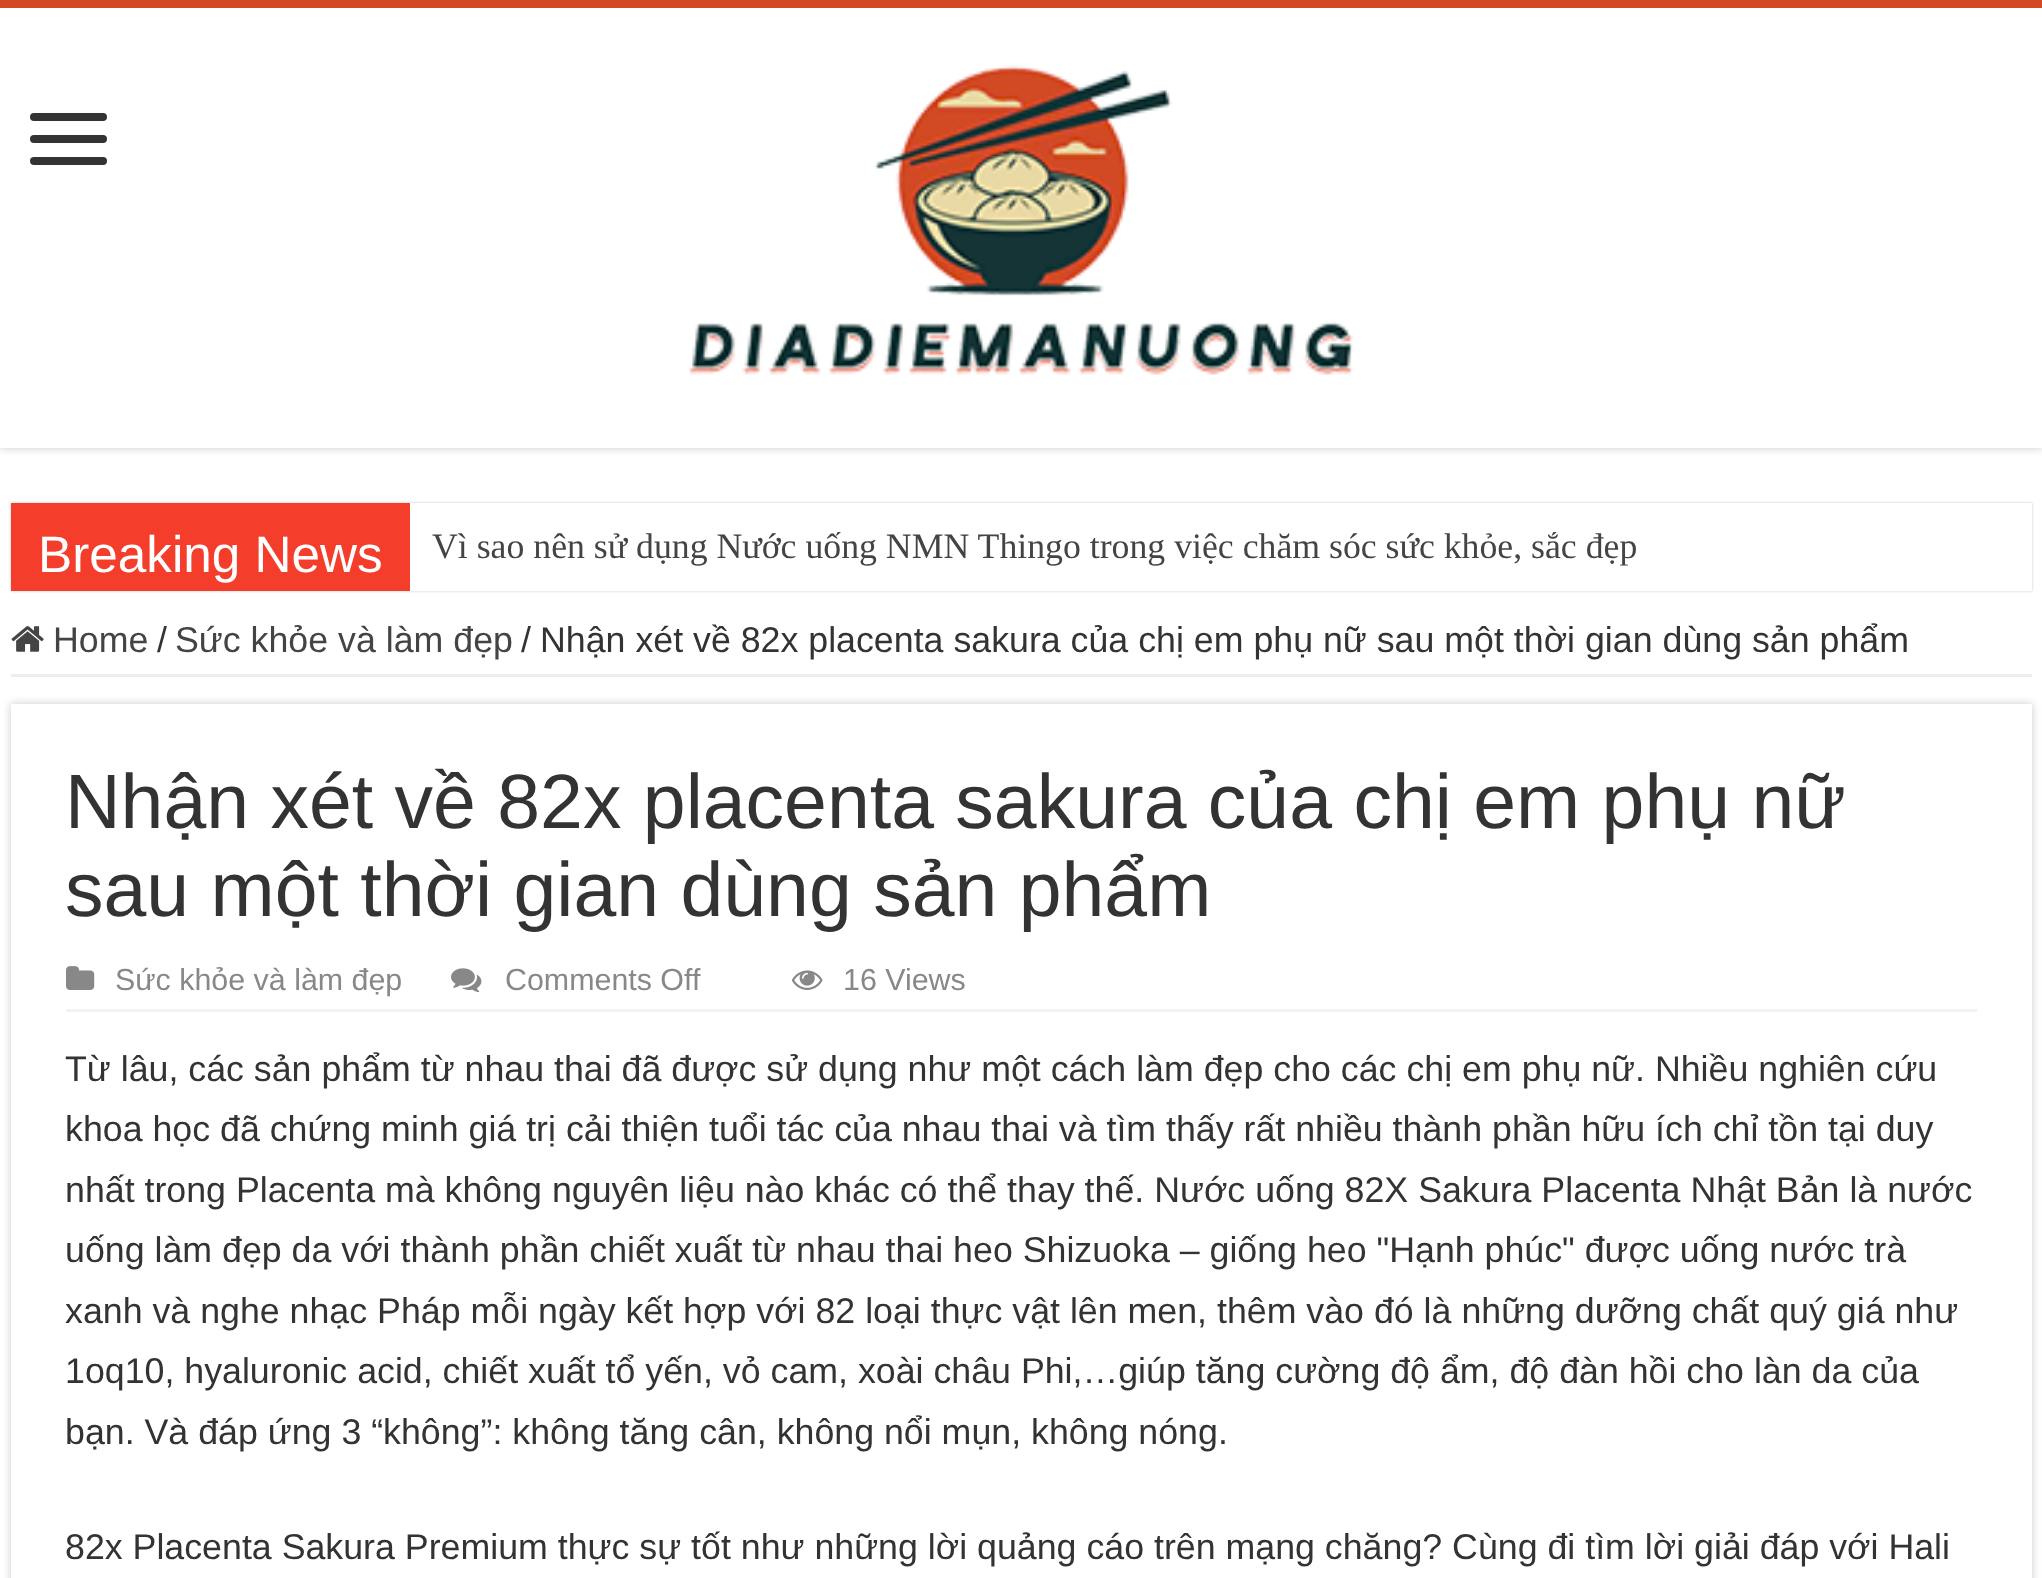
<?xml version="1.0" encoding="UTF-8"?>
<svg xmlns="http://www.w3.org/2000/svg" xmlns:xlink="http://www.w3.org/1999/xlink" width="2042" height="1578">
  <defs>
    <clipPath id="clip1"><rect x="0" y="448" width="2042" height="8" /></clipPath>
    <clipPath id="clip2"><path d="M 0 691 h 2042 v 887 h -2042 z m 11 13 h 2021 v 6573 h -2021 z" clip-rule="evenodd" /></clipPath>
  </defs>
  <rect width="100%" height="100%" fill="#ffffff" />
  <g clip-path="url(#clip1)">
    <rect width="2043" height="448" fill="#cacaca" filter="blur(4px)" />
  </g>
  <rect width="2042" height="8" fill="#d24923" />
  <rect x="30" y="113" width="77" height="8" rx="4" fill="#333333" />
  <rect x="30" y="135" width="77" height="8" rx="4" fill="#333333" />
  <rect x="30" y="157" width="77" height="8" rx="4" fill="#333333" />
  <image x="689" y="65" width="665" height="310" xlink:href="image1.png" />
  <rect x="11" y="503" width="2021" height="88" fill="#cacaca" filter="blur(1.5px)" />
  <rect x="410" y="503" width="1622" height="88" fill="#ffffff" />
  <rect x="11" y="503" width="399" height="88" fill="#f43d2a" />
  <rect x="11" y="674" width="2021" height="3" fill="#eeeeee" />
  <image x="11" y="626" width="33" height="26" xlink:href="image2.png" />
  <g clip-path="url(#clip2)">
    <rect x="11" y="704" width="2021" height="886" fill="#cacaca" filter="blur(4px)" />
  </g>
  <rect x="66" y="1009" width="1911" height="3" fill="#f2f2f2" />
  <image x="66" y="966" width="29" height="24" xlink:href="image3.png" />
  <image x="451" y="968" width="31" height="25" xlink:href="image4.png" />
  <image x="792" y="970" width="31" height="20" xlink:href="image5.png" />
  <text x="38" y="572" style="font-family: Liberation Sans; font-size: 51.25px; fill: #ffffff">Breaking News</text>
  <text x="432" y="558" style="font-family: Liberation Serif; font-size: 35.75px; fill: #444444">Vì sao nên sử dụng Nước uống NMN Thingo trong việc chăm sóc sức khỏe, sắc đẹp</text>
  <text x="53" y="652" style="font-family: Liberation Sans; font-size: 35.75px; fill: #444444">Home</text>
  <text x="157" y="652" style="font-family: Liberation Sans; font-size: 35.75px; fill: #333333">/</text>
  <text x="175" y="652" style="font-family: Liberation Sans; font-size: 35.75px; fill: #444444">Sức khỏe và làm đẹp</text>
  <text x="521" y="652" style="font-family: Liberation Sans; font-size: 35.75px; fill: #333333">/</text>
  <text x="540" y="652" style="font-family: Liberation Sans; font-size: 35.75px; fill: #333333">Nhận xét về 82x placenta sakura của chị em phụ nữ sau một thời gian dùng sản phẩm</text>
  <text x="65" y="828" style="font-family: Liberation Sans; font-size: 77px; fill: #333333">Nhận xét về 82x placenta sakura của chị em phụ nữ</text>
  <text x="65" y="916" style="font-family: Liberation Sans; font-size: 77px; fill: #333333">sau một thời gian dùng sản phẩm</text>
  <text x="115" y="990" style="font-family: Liberation Sans; font-size: 30.4px; fill: #888888">Sức khỏe và làm đẹp</text>
  <text x="505" y="990" style="font-family: Liberation Sans; font-size: 30.4px; fill: #888888">Comments Off</text>
  <text x="843" y="990" style="font-family: Liberation Sans; font-size: 30.4px; fill: #888888">16 Views</text>
  <text x="65" y="1081" style="font-family: Liberation Sans; font-size: 35.75px; fill: #333333">Từ lâu, các sản phẩm từ nhau thai đã được sử dụng như một cách làm đẹp cho các chị em phụ nữ. Nhiều nghiên cứu</text>
  <text x="65" y="1141" style="font-family: Liberation Sans; font-size: 35.75px; fill: #333333">khoa học đã chứng minh giá trị cải thiện tuổi tác của nhau thai và tìm thấy rất nhiều thành phần hữu ích chỉ tồn tại duy</text>
  <text x="65" y="1202" style="font-family: Liberation Sans; font-size: 35.75px; fill: #333333">nhất trong Placenta mà không nguyên liệu nào khác có thể thay thế. Nước uống 82X Sakura Placenta Nhật Bản là nước</text>
  <text x="65" y="1262" style="font-family: Liberation Sans; font-size: 35.75px; fill: #333333">uống làm đẹp da với thành phần chiết xuất từ nhau thai heo Shizuoka – giống heo "Hạnh phúc" được uống nước trà</text>
  <text x="65" y="1323" style="font-family: Liberation Sans; font-size: 35.75px; fill: #333333">xanh và nghe nhạc Pháp mỗi ngày kết hợp với 82 loại thực vật lên men, thêm vào đó là những dưỡng chất quý giá như</text>
  <text x="65" y="1383" style="font-family: Liberation Sans; font-size: 35.75px; fill: #333333">1oq10, hyaluronic acid, chiết xuất tổ yến, vỏ cam, xoài châu Phi,…giúp tăng cường độ ẩm, độ đàn hồi cho làn da của</text>
  <text x="65" y="1444" style="font-family: Liberation Sans; font-size: 35.75px; fill: #333333">bạn. Và đáp ứng 3 “không”: không tăng cân, không nổi mụn, không nóng.</text>
  <text x="65" y="1559" style="font-family: Liberation Sans; font-size: 35.75px; fill: #333333">82x Placenta Sakura Premium thực sự tốt như những lời quảng cáo trên mạng chăng? Cùng đi tìm lời giải đáp với Hali</text>
</svg>
